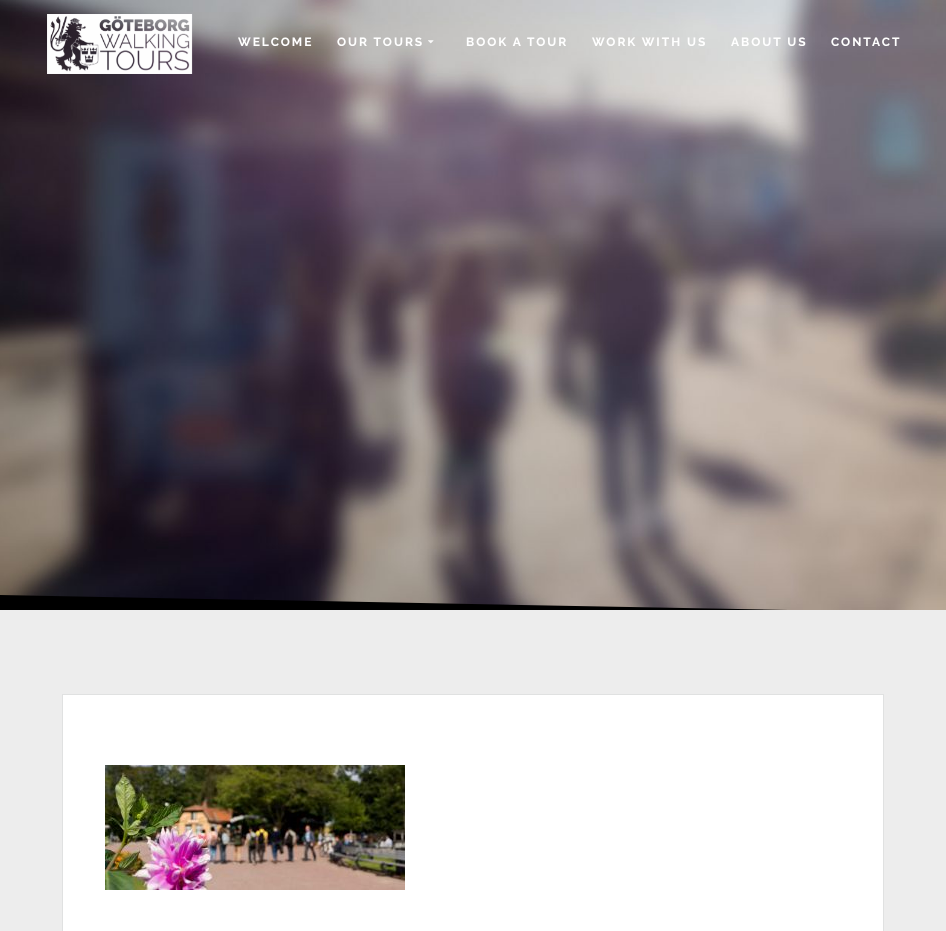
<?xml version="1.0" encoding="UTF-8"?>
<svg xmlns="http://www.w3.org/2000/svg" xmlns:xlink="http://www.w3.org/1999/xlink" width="946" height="931">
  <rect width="100%" height="100%" fill="#ffffff" />
  <image x="0" y="0" width="946" height="610" xlink:href="image1.png" />
  <path d="M 946 613 h -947 v -18 z" fill="#000000" />
  <rect y="610" width="946" height="321" fill="#ededed" />
  <rect x="62.5" y="694.5" width="821" height="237" fill="#ffffff" stroke="#e0e1e1" />
  <image x="105" y="765" width="300" height="125" xlink:href="image2.png" />
  <image x="47" y="14" width="146" height="60" xlink:href="image3.png" />
  <image x="428" y="40" width="6" height="4" xlink:href="image4.png" />
  <text x="238" y="46" style="font-family: Raleway; font-size: 12px; font-weight: bold; letter-spacing: 2px; fill: #ffffff">WELCOME</text>
  <text x="337" y="46" style="font-family: Raleway; font-size: 12px; font-weight: bold; letter-spacing: 2px; fill: #ffffff">OUR TOURS</text>
  <text x="466" y="46" style="font-family: Raleway; font-size: 12px; font-weight: bold; letter-spacing: 2px; fill: #ffffff">BOOK A TOUR</text>
  <text x="592" y="46" style="font-family: Raleway; font-size: 12px; font-weight: bold; letter-spacing: 2px; fill: #ffffff">WORK WITH US</text>
  <text x="731" y="46" style="font-family: Raleway; font-size: 12px; font-weight: bold; letter-spacing: 2px; fill: #ffffff">ABOUT US</text>
  <text x="831" y="46" style="font-family: Raleway; font-size: 12px; font-weight: bold; letter-spacing: 2px; fill: #ffffff">CONTACT</text>
</svg>
